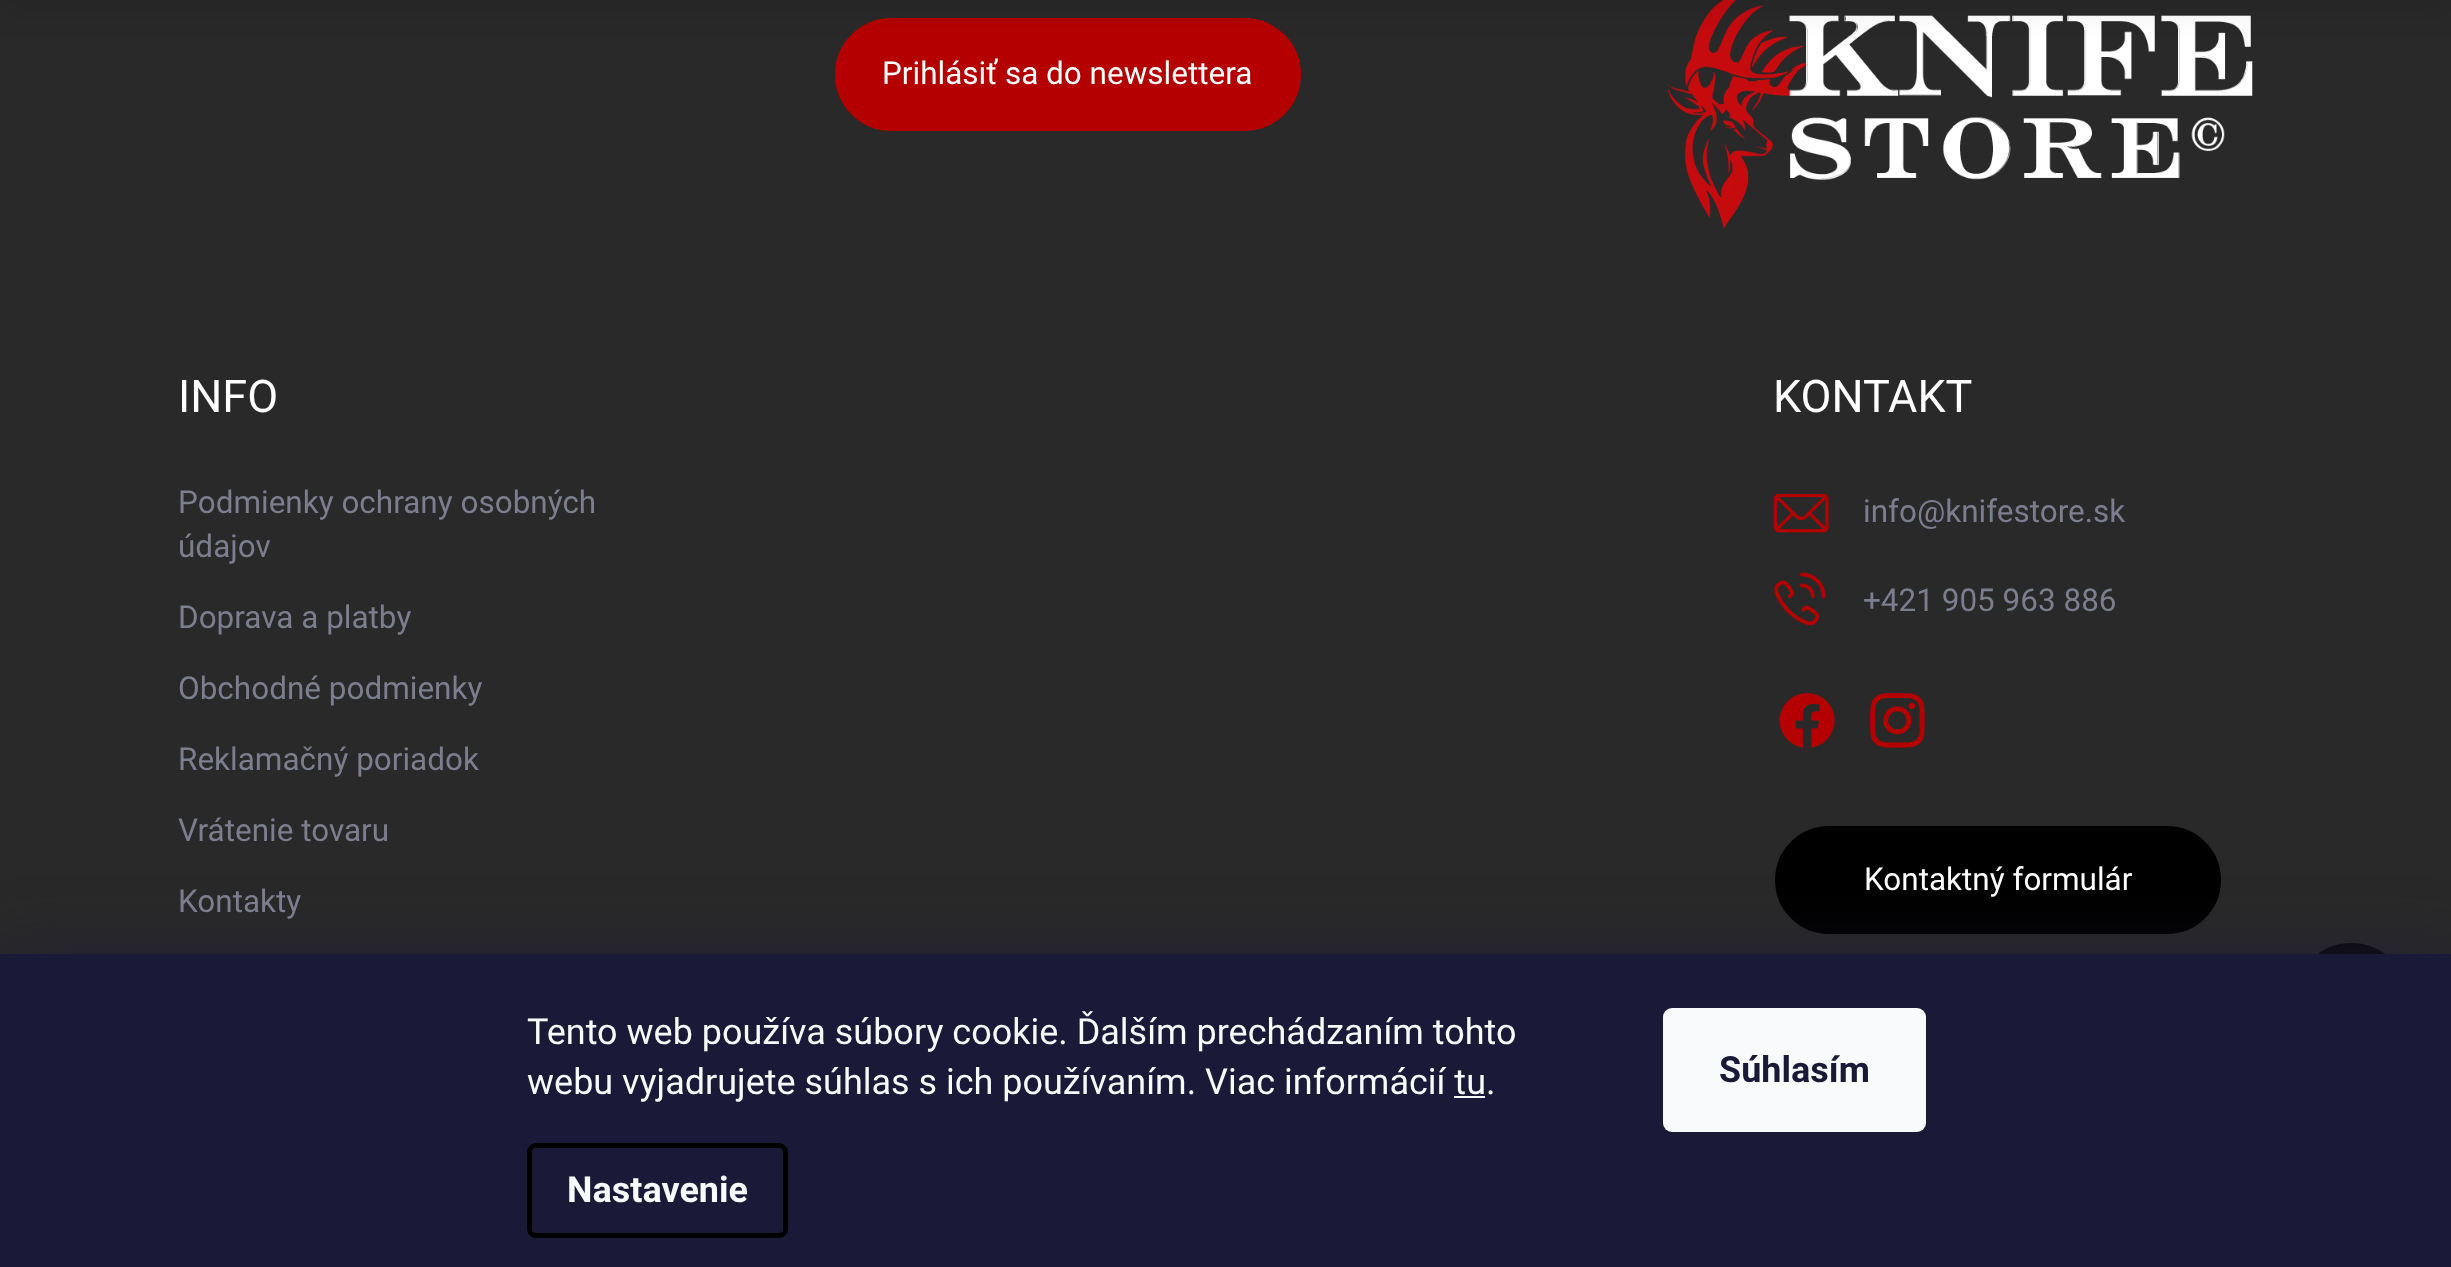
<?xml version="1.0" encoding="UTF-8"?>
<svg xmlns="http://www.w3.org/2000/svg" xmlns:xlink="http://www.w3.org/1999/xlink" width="2451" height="1267">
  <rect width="100%" height="100%" fill="#292929" />
  <rect x="836" y="19" width="464" height="111" rx="55.5" fill="#b50000" stroke="#b50000" stroke-width="2" />
  <image x="1667" y="0" width="586" height="229" xlink:href="image1.png" />
  <rect y="-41" width="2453" height="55" fill="#000000" fill-opacity="0.08" filter="blur(13.5px)" />
  <image x="1773" y="493" width="56" height="40" xlink:href="image2.png" />
  <image x="1774" y="572" width="52" height="54" xlink:href="image3.png" />
  <image x="1779" y="693" width="56" height="55" xlink:href="image4.png" />
  <image x="1870" y="693" width="55" height="55" xlink:href="image5.png" />
  <rect x="1774" y="825" width="448" height="110" rx="55" fill="#000000" stroke="#292929" stroke-width="2" />
  <rect x="2295" y="943" width="113" height="112" rx="56" fill="#0c0c0c" />
  <rect y="954" width="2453" height="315" fill="#1b1939" fill-opacity="0.5" filter="blur(34px)" />
  <rect y="954" width="2451" height="313" fill="#1a1937" />
  <rect x="1454" y="1096" width="31" height="2" fill="#f8fafb" />
  <rect x="529.5" y="1145.5" width="256" height="90" rx="6.5" fill="none" stroke="#000000" stroke-width="5" />
  <rect x="1663" y="1008" width="263" height="124" rx="9" fill="#f8fafb" />
  <text x="882" y="84" style="font-family: Roboto; font-size: 31.5px; fill: #ffffff">Prihlásiť sa do newslettera</text>
  <text x="178" y="412" style="font-family: Roboto; font-size: 45px; fill: #ffffff">INFO</text>
  <text x="178" y="513" style="font-family: Roboto; font-size: 31.5px; fill: #7c7e8f">Podmienky ochrany osobných</text>
  <text x="178" y="557" style="font-family: Roboto; font-size: 31.5px; fill: #7c7e8f">údajov</text>
  <text x="178" y="628" style="font-family: Roboto; font-size: 31.5px; fill: #7c7e8f">Doprava a platby</text>
  <text x="178" y="699" style="font-family: Roboto; font-size: 31.5px; fill: #7c7e8f">Obchodné podmienky</text>
  <text x="178" y="770" style="font-family: Roboto; font-size: 31.5px; fill: #7c7e8f">Reklamačný poriadok</text>
  <text x="178" y="841" style="font-family: Roboto; font-size: 31.5px; fill: #7c7e8f">Vrátenie tovaru</text>
  <text x="178" y="912" style="font-family: Roboto; font-size: 31.5px; fill: #7c7e8f">Kontakty</text>
  <text x="1773" y="412" style="font-family: Roboto; font-size: 45px; fill: #ffffff">KONTAKT</text>
  <text x="1863" y="522" style="font-family: Roboto; font-size: 31.5px; fill: #7c7e8f">info@knifestore.sk</text>
  <text x="1863" y="611" style="font-family: Roboto; font-size: 31.5px; fill: #7c7e8f">+421 905 963 886</text>
  <text x="1864" y="890" style="font-family: Roboto; font-size: 31.5px; fill: #ffffff">Kontaktný formulár</text>
  <text x="527" y="1044" style="font-family: Roboto; font-size: 36px; fill: #f8fafb">Tento web používa súbory cookie. Ďalším prechádzaním tohto</text>
  <text x="527" y="1094" style="font-family: Roboto; font-size: 36px; fill: #f8fafb">webu vyjadrujete súhlas s ich používaním. Viac informácií tu.</text>
  <text x="567" y="1202" style="font-family: Roboto; font-size: 36px; font-weight: bold; fill: #f8fafb">Nastavenie</text>
  <text x="1719" y="1082" style="font-family: Roboto; font-size: 36px; font-weight: bold; fill: #1a1937">Súhlasím</text>
</svg>
